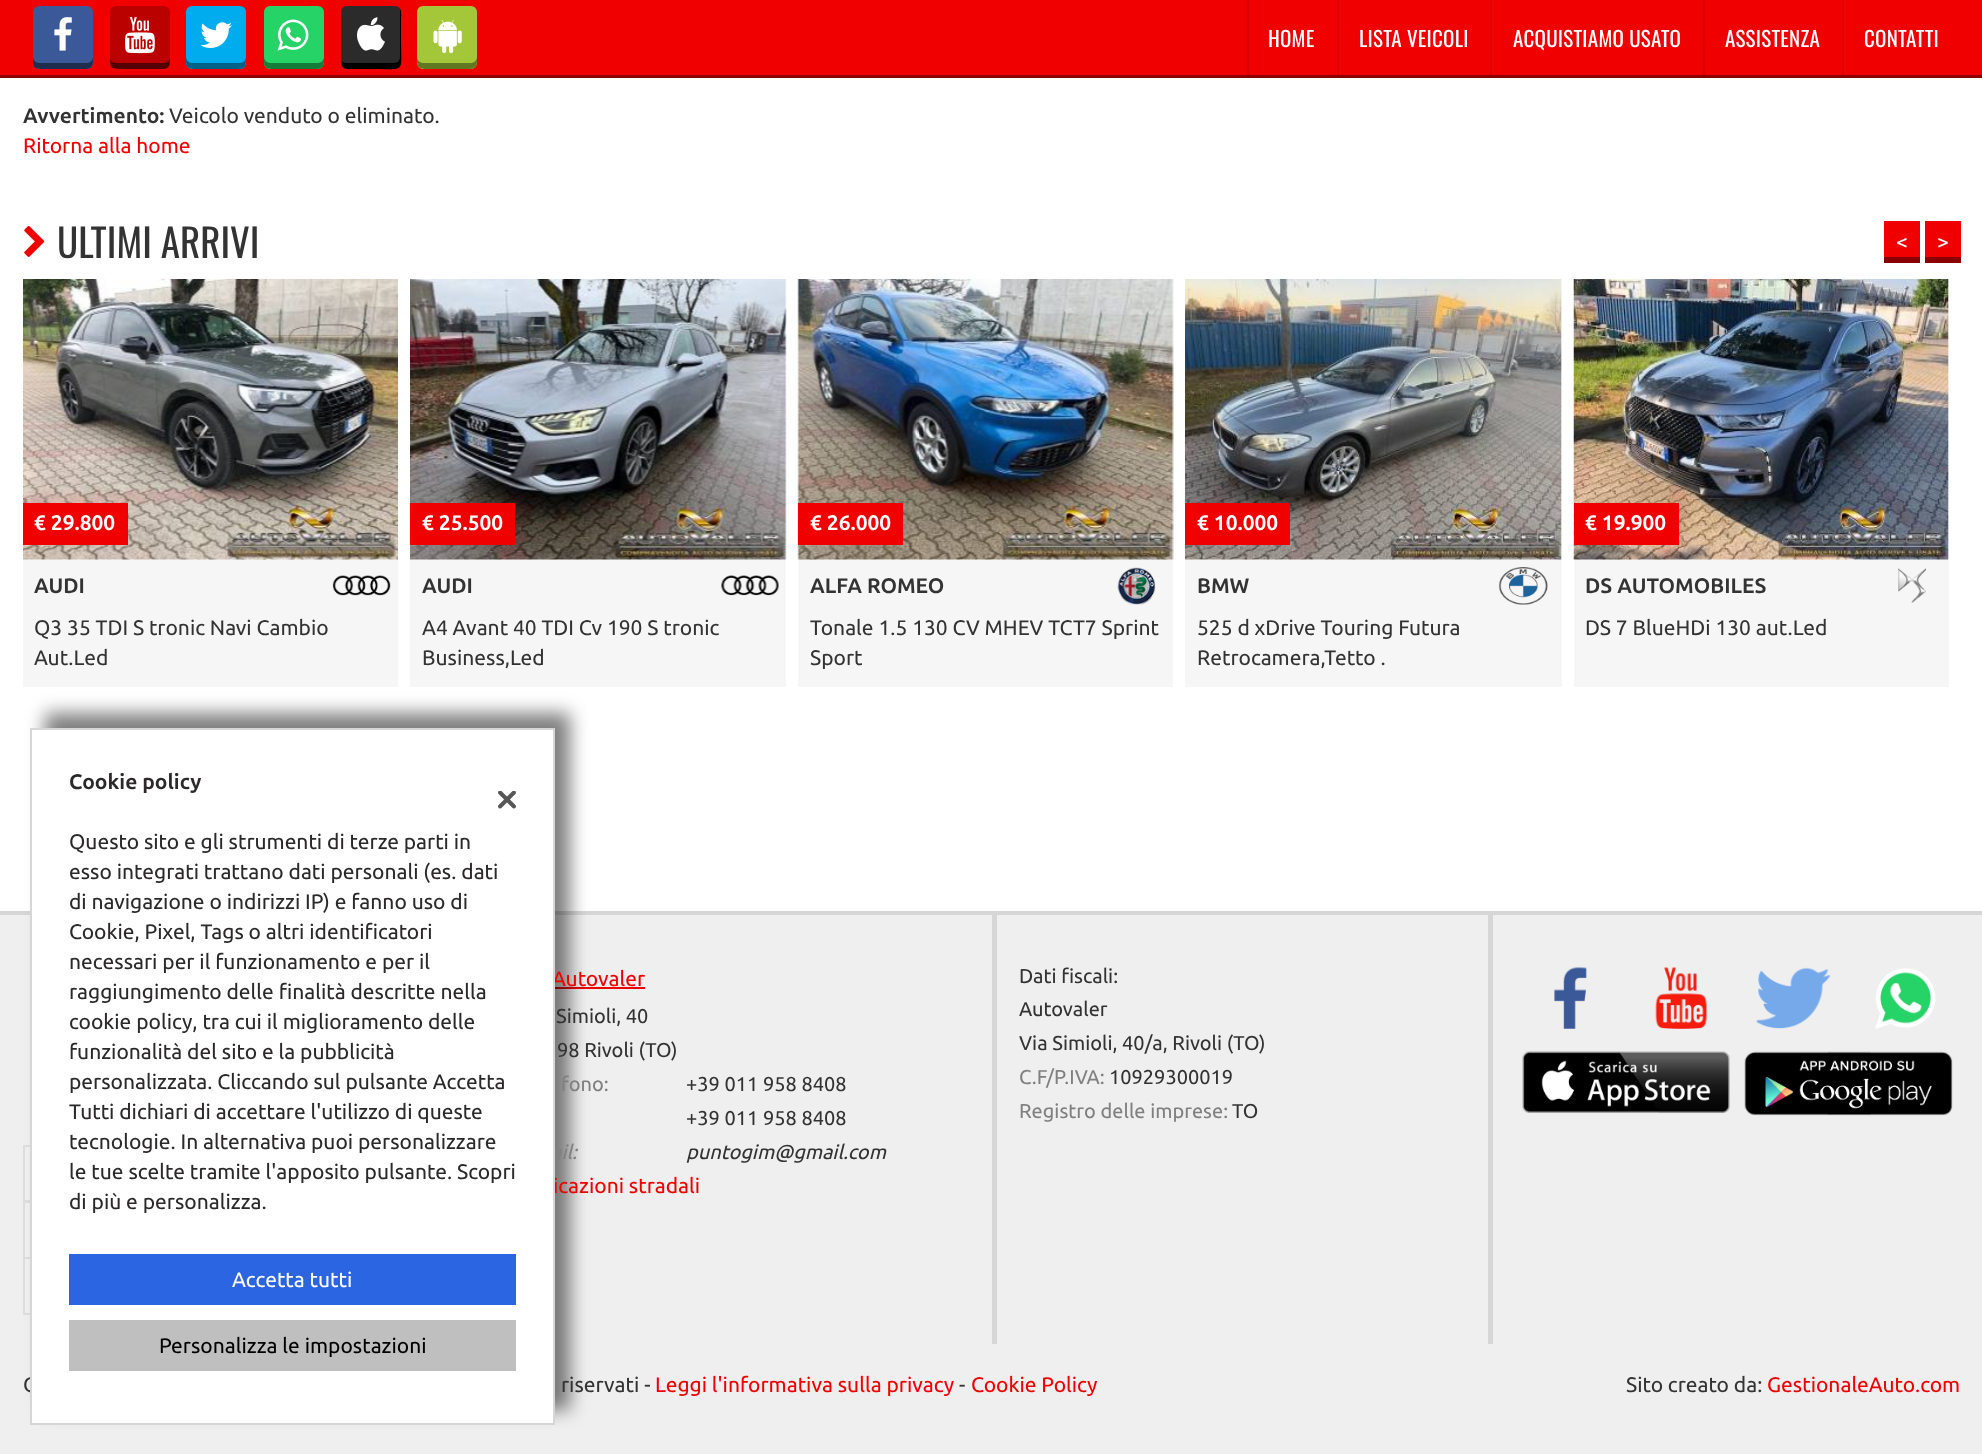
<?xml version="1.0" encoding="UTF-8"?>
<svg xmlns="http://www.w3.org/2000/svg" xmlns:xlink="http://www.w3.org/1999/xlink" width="1982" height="1454">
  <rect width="100%" height="100%" fill="#ffffff" />
  <rect y="75" width="1982" height="3" fill="#8a0000" />
  <rect width="1982" height="75" fill="#f00000" />
  <rect x="33" y="6" width="60" height="63" rx="6" fill="#3b5998" />
  <path d="M 33 57 c 0 12 1 12 14 12 h 32 c 13 0 14 0 14 -12 c 0 3 -3 6 -6 6 h -48 c -3 0 -6 -3 -6 -6 z" fill="#1e2e4f" />
  <image x="54" y="17" width="18" height="34" xlink:href="image1.png" />
  <rect x="110" y="6" width="60" height="63" rx="6" fill="#bb0000" />
  <path d="M 110 57 c 0 12 1 12 14 12 h 32 c 13 0 14 0 14 -12 c 0 3 -3 6 -6 6 h -48 c -4 0 -6 -3 -6 -6 z" fill="#550000" />
  <image x="125" y="17" width="30" height="37" xlink:href="image2.png" />
  <rect x="186" y="6" width="60" height="63" rx="6" fill="#00aced" />
  <path d="M 186 57 c 0 12 1 12 14 12 h 32 c 13 0 14 0 14 -12 c 0 3 -3 6 -6 6 h -48 c -3 0 -6 -3 -6 -6 z" fill="#006287" />
  <image x="200" y="22" width="32" height="26" xlink:href="image3.png" />
  <rect x="264" y="6" width="60" height="63" rx="6" fill="#25d366" />
  <path d="M 264 57 c 0 12 1 12 14 12 h 32 c 13 0 14 0 14 -12 c 0 3 -3 6 -6 6 h -48 c -3 0 -6 -3 -6 -6 z" fill="#167c3c" />
  <image x="277" y="19" width="32" height="32" xlink:href="image4.png" />
  <rect x="341" y="6" width="60" height="63" rx="6" fill="#2b2b2b" />
  <path d="M 341 60 c 0 10 5 9 14 9 h 16 c 36 0 30 5 30 -31 v -18 c 0 -2 1 -8 -1 -11 v 48 c 0 3 -2 6 -6 6 h -48 c -2 0 -4 -1 -5 -3 z" fill="#000000" />
  <image x="357" y="17" width="28" height="34" xlink:href="image5.png" />
  <rect x="417" y="6" width="60" height="63" rx="6" fill="#a4c639" />
  <path d="M 417 57 c 0 12 1 12 14 12 h 32 c 13 0 14 0 14 -12 c 0 3 -3 6 -6 6 h -48 c -3 0 -6 -3 -6 -6 z" fill="#627722" />
  <image x="433" y="19" width="29" height="35" xlink:href="image6.png" />
  <rect x="1247" width="2" height="75" fill="#dc0000" />
  <rect x="1337" width="2" height="75" fill="#dc0000" />
  <rect x="1490" width="2" height="75" fill="#dc0000" />
  <rect x="1703" width="2" height="75" fill="#dc0000" />
  <rect x="1842" width="2" height="75" fill="#dc0000" />
  <image x="24" y="225" width="21" height="32" xlink:href="image7.png" />
  <rect x="1884" y="221" width="36" height="36" fill="#f00000" />
  <rect x="1884" y="257" width="36" height="6" fill="#8a0000" />
  <rect x="1925" y="221" width="36" height="36" fill="#f00000" />
  <rect x="1925" y="257" width="36" height="6" fill="#8a0000" />
  <rect x="23" y="559" width="375" height="128" fill="#f6f6f6" />
  <image x="23" y="279" width="375" height="281" xlink:href="image8.png" />
  <rect x="23" y="503" width="105" height="42" fill="#f00000" />
  <image x="332" y="575" width="59" height="21" xlink:href="image9.png" />
  <rect x="410" y="279" width="376" height="408" fill="#f6f6f6" />
  <image x="410" y="279" width="377" height="281" xlink:href="image10.png" />
  <rect x="410" y="503" width="105" height="42" fill="#f00000" />
  <image x="721" y="575" width="58" height="21" xlink:href="image11.png" />
  <rect x="798" y="279" width="375" height="408" fill="#f6f6f6" />
  <image x="797" y="279" width="377" height="281" xlink:href="image12.png" />
  <rect x="798" y="503" width="105" height="42" fill="#f00000" />
  <image x="1117" y="567" width="39" height="38" xlink:href="image13.png" />
  <rect x="1185" y="279" width="377" height="408" fill="#f6f6f6" />
  <image x="1185" y="279" width="377" height="281" xlink:href="image14.png" />
  <rect x="1185" y="503" width="105" height="42" fill="#f00000" />
  <image x="1498" y="567" width="50" height="38" xlink:href="image15.png" />
  <rect x="1574" y="279" width="375" height="408" fill="#f6f6f6" />
  <image x="1573" y="279" width="376" height="281" xlink:href="image16.png" />
  <rect x="1574" y="503" width="105" height="42" fill="#f00000" />
  <image x="1898" y="568" width="28" height="35" xlink:href="image17.png" />
  <rect y="911" width="1982" height="4" fill="#d6d6d6" />
  <rect y="915" width="1982" height="539" fill="#efefef" />
  <rect x="552" y="987" width="93" height="2" fill="#f00000" />
  <rect x="23" y="1145" width="7" height="2" fill="#dddddd" />
  <rect x="23" y="1313" width="7" height="2" fill="#dddddd" />
  <rect x="23" y="1145" width="2" height="169" fill="#dddddd" />
  <rect x="23" y="1200" width="7" height="3" fill="#dddddd" />
  <rect x="23" y="1257" width="7" height="2" fill="#dddddd" />
  <rect x="45" y="713" width="525" height="697" fill="#000000" fill-opacity="0.5" filter="blur(9px)" />
  <rect x="992" y="915" width="5" height="429" fill="#d6d6d6" />
  <rect x="1488" y="915" width="5" height="429" fill="#d6d6d6" />
  <image x="1554" y="967" width="33" height="62" xlink:href="image19.png" />
  <image x="1655" y="967" width="52" height="62" xlink:href="image20.png" />
  <image x="1756" y="967" width="75" height="62" xlink:href="image21.png" />
  <image x="1875" y="967" width="61" height="62" xlink:href="image22.png" />
  <image x="1522" y="1051" width="208" height="62" xlink:href="image23.png" />
  <image x="1744" y="1051" width="209" height="65" xlink:href="image24.png" />
  <text x="1268" y="47" style="font-family: Oswald; font-size: 21px; letter-spacing: 0.25px; fill: #ffffff">HOME</text>
  <text x="1359" y="47" style="font-family: Oswald; font-size: 21px; letter-spacing: 0.25px; fill: #ffffff">LISTA VEICOLI</text>
  <text x="1513" y="47" style="font-family: Oswald; font-size: 21px; letter-spacing: 0.25px; fill: #ffffff">ACQUISTIAMO USATO</text>
  <text x="1725" y="47" style="font-family: Oswald; font-size: 21px; letter-spacing: 0.25px; fill: #ffffff">ASSISTENZA</text>
  <text x="1864" y="47" style="font-family: Oswald; font-size: 21px; letter-spacing: 0.25px; fill: #ffffff">CONTATTI</text>
  <text x="23" y="123" style="font-family: Ubuntu; font-size: 21px; font-weight: bold; fill: #333333">Avvertimento:</text>
  <text x="169" y="123" style="font-family: Ubuntu; font-size: 21px; fill: #333333">Veicolo venduto o eliminato.</text>
  <text x="23" y="153" style="font-family: Ubuntu; font-size: 21px; fill: #f00000">Ritorna alla home</text>
  <text x="57" y="258" style="font-family: Oswald; font-size: 39px; fill: #333333">ULTIMI ARRIVI</text>
  <text x="1896" y="249" style="font-family: Ubuntu; font-size: 21px; fill: #ffffff">&lt;</text>
  <text x="1937" y="249" style="font-family: Ubuntu; font-size: 21px; fill: #ffffff">&gt;</text>
  <text x="34" y="530" style="font-family: Ubuntu; font-size: 21px; font-weight: bold; fill: #ffffff">€ 29.800</text>
  <text x="34" y="593" style="font-family: Ubuntu; font-size: 21px; font-weight: bold; fill: #333333">AUDI</text>
  <text x="34" y="635" style="font-family: Ubuntu; font-size: 21px; fill: #333333">Q3 35 TDI S tronic Navi Cambio</text>
  <text x="34" y="665" style="font-family: Ubuntu; font-size: 21px; fill: #333333">Aut.Led</text>
  <text x="422" y="530" style="font-family: Ubuntu; font-size: 21px; font-weight: bold; fill: #ffffff">€ 25.500</text>
  <text x="422" y="593" style="font-family: Ubuntu; font-size: 21px; font-weight: bold; fill: #333333">AUDI</text>
  <text x="422" y="635" style="font-family: Ubuntu; font-size: 21px; fill: #333333">A4 Avant 40 TDI Cv 190 S tronic</text>
  <text x="422" y="665" style="font-family: Ubuntu; font-size: 21px; fill: #333333">Business,Led</text>
  <text x="810" y="530" style="font-family: Ubuntu; font-size: 21px; font-weight: bold; fill: #ffffff">€ 26.000</text>
  <text x="810" y="593" style="font-family: Ubuntu; font-size: 21px; font-weight: bold; fill: #333333">ALFA ROMEO</text>
  <text x="810" y="635" style="font-family: Ubuntu; font-size: 21px; fill: #333333">Tonale 1.5 130 CV MHEV TCT7 Sprint</text>
  <text x="810" y="665" style="font-family: Ubuntu; font-size: 21px; fill: #333333">Sport</text>
  <text x="1197" y="530" style="font-family: Ubuntu; font-size: 21px; font-weight: bold; fill: #ffffff">€ 10.000</text>
  <text x="1197" y="593" style="font-family: Ubuntu; font-size: 21px; font-weight: bold; fill: #333333">BMW</text>
  <text x="1197" y="635" style="font-family: Ubuntu; font-size: 21px; fill: #333333">525 d xDrive Touring Futura</text>
  <text x="1197" y="665" style="font-family: Ubuntu; font-size: 21px; fill: #333333">Retrocamera,Tetto .</text>
  <text x="1585" y="530" style="font-family: Ubuntu; font-size: 21px; font-weight: bold; fill: #ffffff">€ 19.900</text>
  <text x="1585" y="593" style="font-family: Ubuntu; font-size: 21px; font-weight: bold; fill: #333333">DS AUTOMOBILES</text>
  <text x="1585" y="635" style="font-family: Ubuntu; font-size: 21px; fill: #333333">DS 7 BlueHDi 130 aut.Led</text>
  <text x="552" y="986" style="font-family: Ubuntu; font-size: 21px; fill: #f00000">Autovaler</text>
  <text x="556" y="1023" style="font-family: Ubuntu; font-size: 20px; fill: #333333">Simioli, 40</text>
  <text x="557" y="1057" style="font-family: Ubuntu; font-size: 20px; fill: #333333">98 Rivoli (TO)</text>
  <text x="561" y="1091" style="font-family: Ubuntu; font-size: 20px; fill: #808080">fono:</text>
  <text x="686" y="1091" style="font-family: Ubuntu; font-size: 20px; fill: #333333">+39 011 958 8408</text>
  <text x="553" y="1125" style="font-family: Ubuntu; font-size: 20px; fill: #808080">:</text>
  <text x="686" y="1125" style="font-family: Ubuntu; font-size: 20px; fill: #333333">+39 011 958 8408</text>
  <text x="551" y="1159" style="font-family: Ubuntu; font-size: 20px; font-style: italic; fill: #808080">ail:</text>
  <text x="686" y="1159" style="font-family: Ubuntu; font-size: 20px; font-style: italic; fill: #333333">puntogim@gmail.com</text>
  <text x="553" y="1193" style="font-family: Ubuntu; font-size: 21px; fill: #f00000">icazioni stradali</text>
  <text x="1019" y="983" style="font-family: Ubuntu; font-size: 20px; fill: #333333">Dati fiscali:</text>
  <text x="1019" y="1016" style="font-family: Ubuntu; font-size: 20px; fill: #333333">Autovaler</text>
  <text x="1019" y="1050" style="font-family: Ubuntu; font-size: 20px; fill: #333333">Via Simioli, 40/a, Rivoli (TO)</text>
  <text x="1019" y="1084" style="font-family: Ubuntu; font-size: 20px; fill: #808080">C.F/P.IVA:</text>
  <text x="1109" y="1084" style="font-family: Ubuntu; font-size: 20px; fill: #333333">10929300019</text>
  <text x="1019" y="1118" style="font-family: Ubuntu; font-size: 20px; fill: #808080">Registro delle imprese:</text>
  <text x="1232" y="1118" style="font-family: Ubuntu; font-size: 20px; fill: #333333">TO</text>
  <text x="23" y="1392" style="font-family: Ubuntu; font-size: 21px; fill: #333333">C</text>
  <rect x="31" y="729" width="523" height="695" fill="#ffffff" stroke="#d6d6d6" stroke-width="2" />
  <image x="498" y="791" width="18" height="18" xlink:href="image18.png" />
  <rect x="69" y="1320" width="447" height="51" fill="#bfbfbf" />
  <text x="159" y="1353" style="font-family: Ubuntu; font-size: 21px; fill: #000000">Personalizza le impostazioni</text>
  <rect x="69" y="1254" width="447" height="51" fill="#2c65e1" />
  <text x="232" y="1287" style="font-family: Ubuntu; font-size: 21px; fill: #ffffff">Accetta tutti</text>
  <text x="69" y="1209" style="font-family: Ubuntu; font-size: 21px; fill: #2b2929">di più e personalizza.</text>
  <text x="69" y="1179" style="font-family: Ubuntu; font-size: 21px; fill: #2b2929">le tue scelte tramite l'apposito pulsante. Scopri</text>
  <text x="69" y="1149" style="font-family: Ubuntu; font-size: 21px; fill: #2b2929">tecnologie. In alternativa puoi personalizzare</text>
  <text x="69" y="1119" style="font-family: Ubuntu; font-size: 21px; fill: #2b2929">Tutti dichiari di accettare l'utilizzo di queste</text>
  <text x="69" y="1089" style="font-family: Ubuntu; font-size: 21px; fill: #2b2929">personalizzata. Cliccando sul pulsante Accetta</text>
  <text x="69" y="1059" style="font-family: Ubuntu; font-size: 21px; fill: #2b2929">funzionalità del sito e la pubblicità</text>
  <text x="69" y="1029" style="font-family: Ubuntu; font-size: 21px; fill: #2b2929">cookie policy, tra cui il miglioramento delle</text>
  <text x="69" y="999" style="font-family: Ubuntu; font-size: 21px; fill: #2b2929">raggiungimento delle finalità descritte nella</text>
  <text x="69" y="969" style="font-family: Ubuntu; font-size: 21px; fill: #2b2929">necessari per il funzionamento e per il</text>
  <text x="69" y="939" style="font-family: Ubuntu; font-size: 21px; fill: #2b2929">Cookie, Pixel, Tags o altri identificatori</text>
  <text x="69" y="909" style="font-family: Ubuntu; font-size: 21px; fill: #2b2929">di navigazione o indirizzi IP) e fanno uso di</text>
  <text x="69" y="879" style="font-family: Ubuntu; font-size: 21px; fill: #2b2929">esso integrati trattano dati personali (es. dati</text>
  <text x="69" y="849" style="font-family: Ubuntu; font-size: 21px; fill: #2b2929">Questo sito e gli strumenti di terze parti in</text>
  <text x="69" y="789" style="font-family: Ubuntu; font-size: 21px; font-weight: bold; fill: #2b2929">Cookie policy</text>
  <text x="561" y="1392" style="font-family: Ubuntu; font-size: 21px; fill: #333333">riservati -</text>
  <text x="655" y="1392" style="font-family: Ubuntu; font-size: 21px; fill: #f00000">Leggi l'informativa sulla privacy</text>
  <text x="959" y="1392" style="font-family: Ubuntu; font-size: 21px; fill: #333333">-</text>
  <text x="971" y="1392" style="font-family: Ubuntu; font-size: 21px; fill: #f00000">Cookie Policy</text>
  <text x="1626" y="1392" style="font-family: Ubuntu; font-size: 21px; fill: #333333">Sito creato da:</text>
  <text x="1767" y="1392" style="font-family: Ubuntu; font-size: 21px; fill: #f00000">GestionaleAuto.com</text>
</svg>
